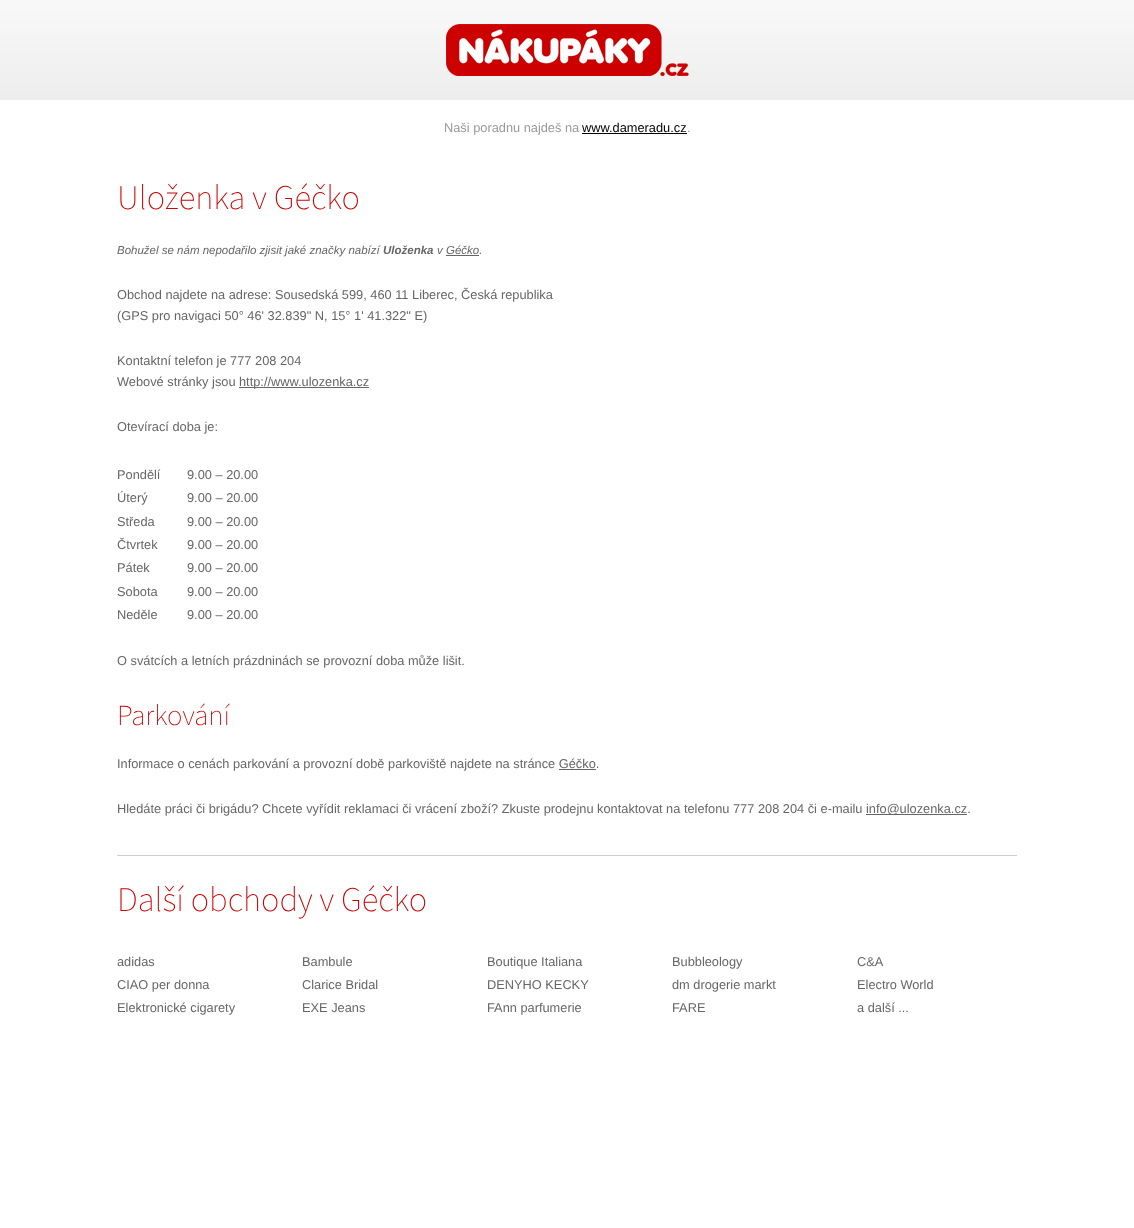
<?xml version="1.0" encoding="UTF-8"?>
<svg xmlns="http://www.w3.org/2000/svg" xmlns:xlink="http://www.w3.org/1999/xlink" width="1134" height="1228">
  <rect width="100%" height="100%" fill="#ffffff" />
  <image x="0" y="0" width="1134" height="100" xlink:href="image1.png" />
  <image x="446" y="24" width="243" height="52" xlink:href="image2.png" />
  <rect x="582" y="133" width="105" height="1" fill="#000000" />
  <rect x="446" y="255" width="33" height="1" fill="#666666" />
  <rect x="239" y="387" width="130" height="1" fill="#666666" />
  <rect x="559" y="769" width="37" height="1" fill="#666666" />
  <rect x="866" y="814" width="101" height="1" fill="#666666" />
  <rect x="117" y="855" width="900" height="1" fill="#cccccc" />
  <text x="444" y="132" style="font-family: Liberation Sans; font-size: 12.8px; fill: #999999">Naši poradnu najdeš na</text>
  <text x="582" y="132" style="font-family: Liberation Sans; font-size: 12.8px; fill: #000000">www.dameradu.cz</text>
  <text x="687" y="132" style="font-family: Liberation Sans; font-size: 12.8px; fill: #999999">.</text>
  <text x="117" y="209" style="font-family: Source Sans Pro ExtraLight; font-size: 34.5px; font-weight: 200; fill: #cc0000">Uloženka v Géčko</text>
  <text x="117" y="254" style="font-family: Liberation Sans; font-size: 11.5px; font-style: italic; fill: #666666">Bohužel se nám nepodařilo zjisit jaké značky nabízí</text>
  <text x="383" y="254" style="font-family: Liberation Sans; font-size: 11.5px; font-weight: bold; font-style: italic; fill: #666666">Uloženka</text>
  <text x="437" y="254" style="font-family: Liberation Sans; font-size: 11.5px; font-style: italic; fill: #666666">v Géčko.</text>
  <text x="117" y="299" style="font-family: Liberation Sans; font-size: 12.8px; fill: #666666">Obchod najdete na adrese: Sousedská 599, 460 11 Liberec, Česká republika</text>
  <text x="117" y="320" style="font-family: Liberation Sans; font-size: 12.8px; fill: #666666">(GPS pro navigaci 50° 46' 32.839" N, 15° 1' 41.322" E)</text>
  <text x="117" y="365" style="font-family: Liberation Sans; font-size: 12.8px; fill: #666666">Kontaktní telefon je 777 208 204</text>
  <text x="117" y="386" style="font-family: Liberation Sans; font-size: 12.8px; fill: #666666">Webové stránky jsou</text>
  <text x="239" y="386" style="font-family: Liberation Sans; font-size: 12.8px; fill: #666666">http://www.ulozenka.cz</text>
  <text x="117" y="431" style="font-family: Liberation Sans; font-size: 12.8px; fill: #666666">Otevírací doba je:</text>
  <text x="117" y="479" style="font-family: Liberation Sans; font-size: 12.8px; fill: #666666">Pondělí</text>
  <text x="187" y="479" style="font-family: Liberation Sans; font-size: 12.8px; fill: #666666">9.00 – 20.00</text>
  <text x="117" y="502" style="font-family: Liberation Sans; font-size: 12.8px; fill: #666666">Úterý</text>
  <text x="187" y="502" style="font-family: Liberation Sans; font-size: 12.8px; fill: #666666">9.00 – 20.00</text>
  <text x="117" y="526" style="font-family: Liberation Sans; font-size: 12.8px; fill: #666666">Středa</text>
  <text x="187" y="526" style="font-family: Liberation Sans; font-size: 12.8px; fill: #666666">9.00 – 20.00</text>
  <text x="117" y="549" style="font-family: Liberation Sans; font-size: 12.8px; fill: #666666">Čtvrtek</text>
  <text x="187" y="549" style="font-family: Liberation Sans; font-size: 12.8px; fill: #666666">9.00 – 20.00</text>
  <text x="117" y="572" style="font-family: Liberation Sans; font-size: 12.8px; fill: #666666">Pátek</text>
  <text x="187" y="572" style="font-family: Liberation Sans; font-size: 12.8px; fill: #666666">9.00 – 20.00</text>
  <text x="117" y="596" style="font-family: Liberation Sans; font-size: 12.8px; fill: #666666">Sobota</text>
  <text x="187" y="596" style="font-family: Liberation Sans; font-size: 12.8px; fill: #666666">9.00 – 20.00</text>
  <text x="117" y="619" style="font-family: Liberation Sans; font-size: 12.8px; fill: #666666">Neděle</text>
  <text x="187" y="619" style="font-family: Liberation Sans; font-size: 12.8px; fill: #666666">9.00 – 20.00</text>
  <text x="117" y="665" style="font-family: Liberation Sans; font-size: 12.8px; fill: #666666">O svátcích a letních prázdninách se provozní doba může lišit.</text>
  <text x="117" y="725" style="font-family: Source Sans Pro ExtraLight; font-size: 29px; font-weight: 200; fill: #cc0000">Parkování</text>
  <text x="117" y="768" style="font-family: Liberation Sans; font-size: 12.8px; fill: #666666">Informace o cenách parkování a provozní době parkoviště najdete na stránce Géčko.</text>
  <text x="117" y="813" style="font-family: Liberation Sans; font-size: 12.8px; fill: #666666">Hledáte práci či brigádu? Chcete vyřídit reklamaci či vrácení zboží? Zkuste prodejnu kontaktovat na telefonu 777 208 204 či e-mailu</text>
  <text x="866" y="813" style="font-family: Liberation Sans; font-size: 12.8px; fill: #666666">info@ulozenka.cz.</text>
  <text x="117" y="911" style="font-family: Source Sans Pro ExtraLight; font-size: 34.5px; font-weight: 200; fill: #cc0000">Další obchody v Géčko</text>
  <text x="117" y="966" style="font-family: Liberation Sans; font-size: 12.8px; fill: #666666">adidas</text>
  <text x="302" y="966" style="font-family: Liberation Sans; font-size: 12.8px; fill: #666666">Bambule</text>
  <text x="487" y="966" style="font-family: Liberation Sans; font-size: 12.8px; fill: #666666">Boutique Italiana</text>
  <text x="672" y="966" style="font-family: Liberation Sans; font-size: 12.8px; fill: #666666">Bubbleology</text>
  <text x="857" y="966" style="font-family: Liberation Sans; font-size: 12.8px; fill: #666666">C&amp;A</text>
  <text x="117" y="989" style="font-family: Liberation Sans; font-size: 12.8px; fill: #666666">CIAO per donna</text>
  <text x="302" y="989" style="font-family: Liberation Sans; font-size: 12.8px; fill: #666666">Clarice Bridal</text>
  <text x="487" y="989" style="font-family: Liberation Sans; font-size: 12.8px; fill: #666666">DENYHO KECKY</text>
  <text x="672" y="989" style="font-family: Liberation Sans; font-size: 12.8px; fill: #666666">dm drogerie markt</text>
  <text x="857" y="989" style="font-family: Liberation Sans; font-size: 12.8px; fill: #666666">Electro World</text>
  <text x="117" y="1012" style="font-family: Liberation Sans; font-size: 12.8px; fill: #666666">Elektronické cigarety</text>
  <text x="302" y="1012" style="font-family: Liberation Sans; font-size: 12.8px; fill: #666666">EXE Jeans</text>
  <text x="487" y="1012" style="font-family: Liberation Sans; font-size: 12.8px; fill: #666666">FAnn parfumerie</text>
  <text x="672" y="1012" style="font-family: Liberation Sans; font-size: 12.8px; fill: #666666">FARE</text>
  <text x="857" y="1012" style="font-family: Liberation Sans; font-size: 12.8px; fill: #666666">a další ...</text>
</svg>
